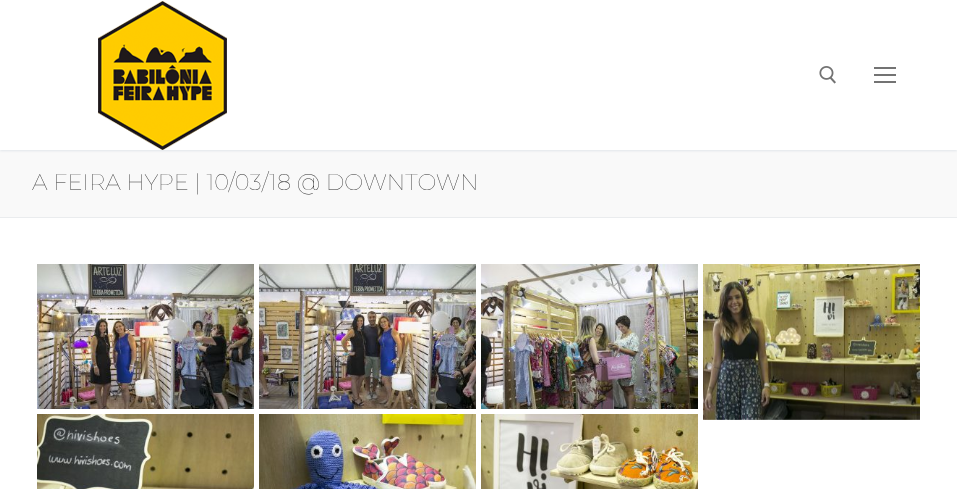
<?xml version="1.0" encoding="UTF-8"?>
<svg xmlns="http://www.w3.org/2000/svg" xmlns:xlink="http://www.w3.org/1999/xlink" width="957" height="489">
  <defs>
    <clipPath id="clip1"><rect x="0" y="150" width="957" height="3" /></clipPath>
  </defs>
  <rect width="100%" height="100%" fill="#ffffff" />
  <rect y="150" width="957" height="67" fill="#f9f9f9" />
  <g clip-path="url(#clip1)">
    <rect y="1" width="957" height="150" fill="#e1e5ea" filter="blur(1px)" />
  </g>
  <image x="98" y="1" width="129" height="149" xlink:href="image1.png" />
  <image x="819" y="66" width="17" height="18" xlink:href="image2.png" />
  <rect x="874" y="74" width="22" height="2" fill="#737373" />
  <rect x="874" y="67" width="22" height="2" fill="#737373" />
  <rect x="874" y="81" width="22" height="2" fill="#737373" />
  <rect y="217" width="957" height="1" fill="#eaecee" />
  <image x="37" y="264" width="217" height="145" xlink:href="image3.png" />
  <image x="37" y="414" width="217" height="75" xlink:href="image4.png" />
  <image x="259" y="264" width="217" height="145" xlink:href="image5.png" />
  <image x="259" y="414" width="217" height="75" xlink:href="image6.png" />
  <image x="481" y="264" width="217" height="145" xlink:href="image7.png" />
  <image x="481" y="414" width="217" height="75" xlink:href="image8.png" />
  <image x="703" y="264" width="217" height="156" xlink:href="image9.png" />
  <text x="32" y="190" style="font-family: Montserrat; font-size: 22.6px; font-weight: 100; fill: #2b2b2b">A FEIRA HYPE | 10/03/18 @ DOWNTOWN</text>
</svg>
